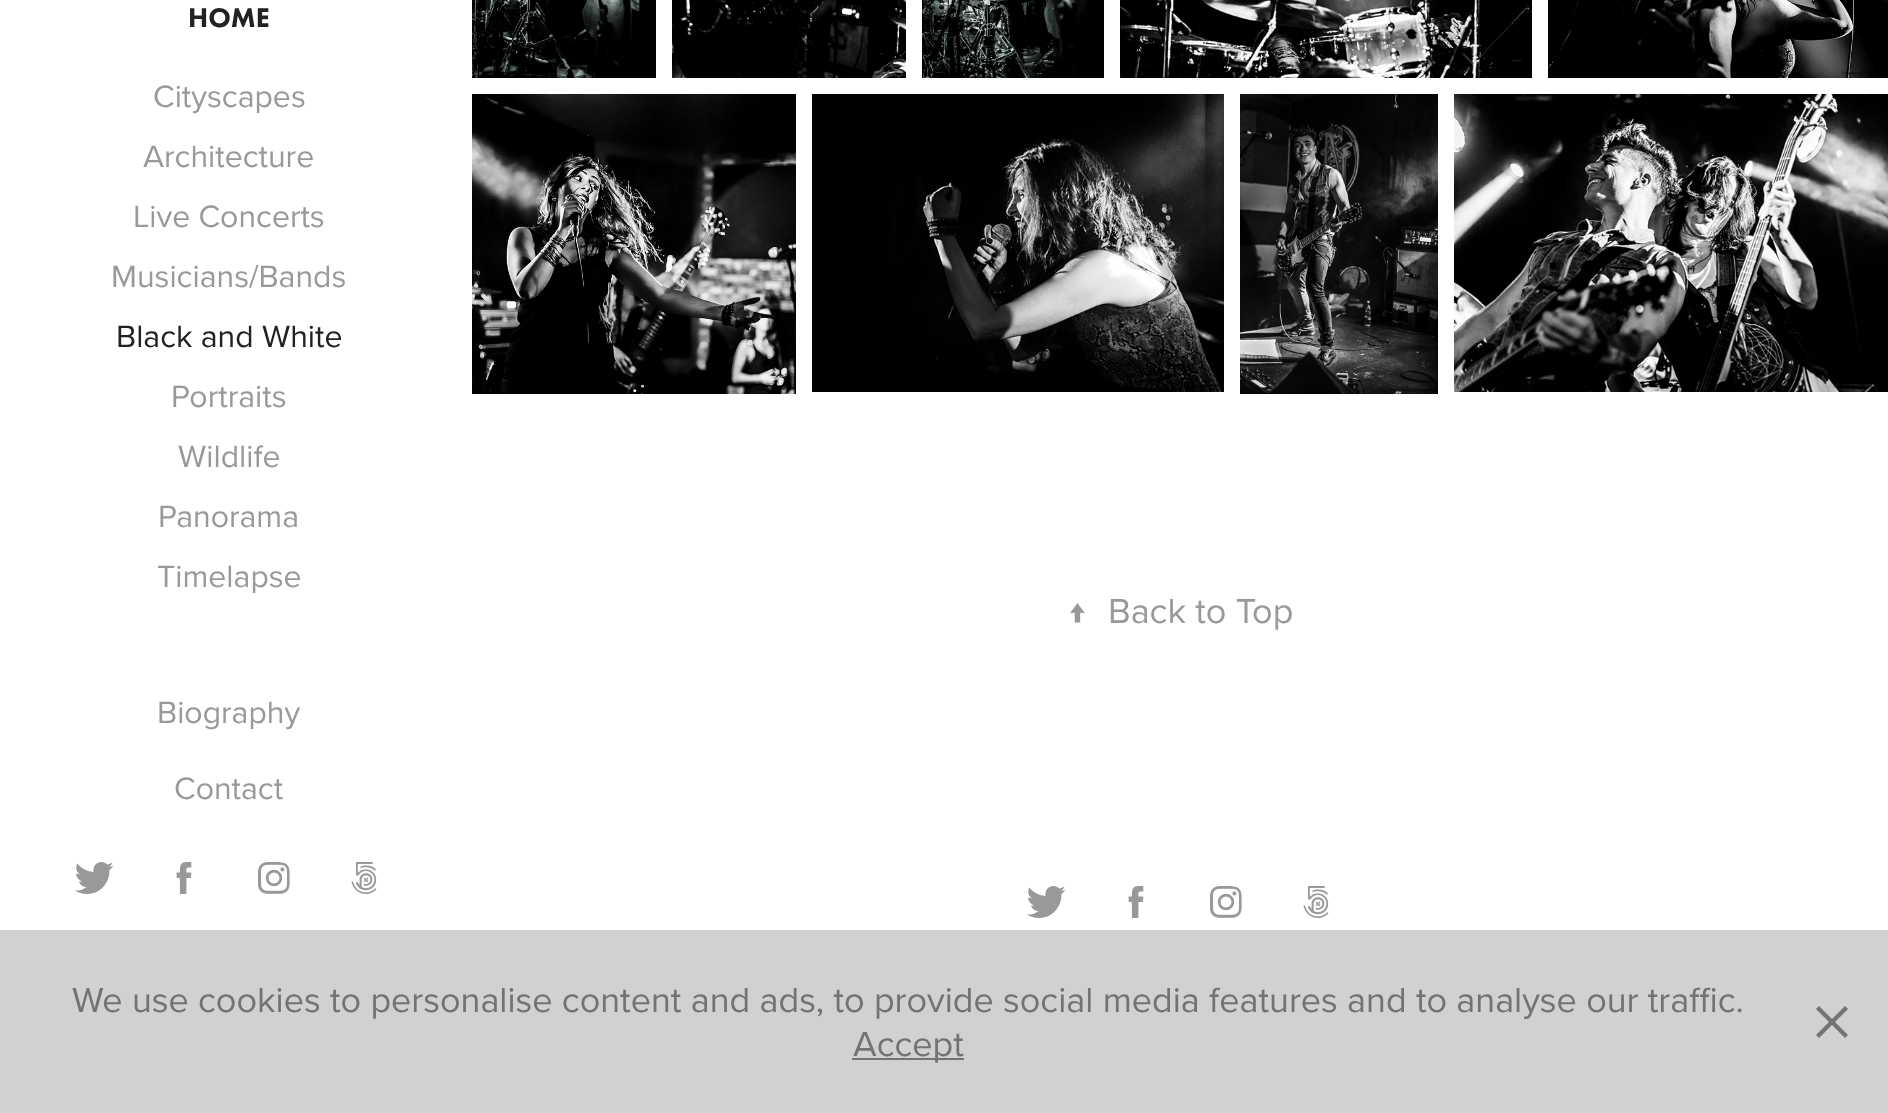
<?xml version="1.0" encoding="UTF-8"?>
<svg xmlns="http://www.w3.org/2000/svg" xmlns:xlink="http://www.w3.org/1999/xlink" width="1888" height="1113">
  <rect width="100%" height="100%" fill="#ffffff" />
  <image x="75" y="862" width="39" height="32" xlink:href="image1.png" />
  <image x="176" y="862" width="16" height="32" xlink:href="image2.png" />
  <image x="258" y="862" width="32" height="32" xlink:href="image3.png" />
  <image x="351" y="862" width="26" height="32" xlink:href="image4.png" />
  <image x="472" y="0" width="184" height="78" xlink:href="image5.png" />
  <image x="672" y="0" width="234" height="78" xlink:href="image6.png" />
  <image x="922" y="0" width="182" height="78" xlink:href="image7.png" />
  <image x="1120" y="0" width="412" height="78" xlink:href="image8.png" />
  <image x="1548" y="0" width="340" height="78" xlink:href="image9.png" />
  <image x="472" y="94" width="324" height="300" xlink:href="image10.png" />
  <image x="812" y="94" width="412" height="298" xlink:href="image11.png" />
  <image x="1240" y="94" width="198" height="300" xlink:href="image12.png" />
  <image x="1454" y="94" width="434" height="298" xlink:href="image13.png" />
  <image x="1027" y="886" width="39" height="32" xlink:href="image1.png" />
  <image x="1128" y="886" width="16" height="32" xlink:href="image2.png" />
  <image x="1210" y="886" width="32" height="32" xlink:href="image3.png" />
  <image x="1303" y="886" width="26" height="32" xlink:href="image4.png" />
  <rect y="930" width="1888" height="183" fill="#d1d1d1" />
  <rect x="852" y="1058" width="112" height="2" fill="#737373" />
  <path d="M 1816 1009 l 3 -3 l 29 29 l -3 3 z" fill="#737373" />
  <path d="M 1819 1038 l -3 -3 l 29 -29 l 3 3 z" fill="#737373" />
  <text x="188" y="27" style="font-family: Futura PT; font-size: 28px; font-weight: 900; fill: #222222">HOME</text>
  <text x="153" y="107" style="font-family: Proxima Nova; font-size: 32px; fill: #999999">Cityscapes</text>
  <text x="143" y="167" style="font-family: Proxima Nova; font-size: 32px; fill: #999999">Architecture</text>
  <text x="133" y="227" style="font-family: Proxima Nova; font-size: 32px; fill: #999999">Live Concerts</text>
  <text x="111" y="287" style="font-family: Proxima Nova; font-size: 32px; fill: #999999">Musicians/Bands</text>
  <text x="116" y="347" style="font-family: Proxima Nova; font-size: 32px; fill: #222222">Black and White</text>
  <text x="171" y="407" style="font-family: Proxima Nova; font-size: 32px; fill: #999999">Portraits</text>
  <text x="178" y="467" style="font-family: Proxima Nova; font-size: 32px; fill: #999999">Wildlife</text>
  <text x="158" y="527" style="font-family: Proxima Nova; font-size: 32px; fill: #999999">Panorama</text>
  <text x="157" y="587" style="font-family: Proxima Nova; font-size: 32px; fill: #999999">Timelapse</text>
  <text x="157" y="723" style="font-family: Proxima Nova; font-size: 32px; fill: #999999">Biography</text>
  <text x="174" y="799" style="font-family: Proxima Nova; font-size: 32px; fill: #999999">Contact</text>
  <text x="1067" y="623" style="font-family: Proxima Nova; font-size: 36px; fill: #999999">↑</text>
  <text x="1108" y="623" style="font-family: Proxima Nova; font-size: 36px; fill: #999999">Back to Top</text>
  <text x="72" y="1012" style="font-family: Proxima Nova; font-size: 36px; fill: #737373">We use cookies to personalise content and ads, to provide social media features and to analyse our traffic.</text>
  <text x="853" y="1056" style="font-family: Proxima Nova; font-size: 36px; fill: #737373">Accept</text>
</svg>
